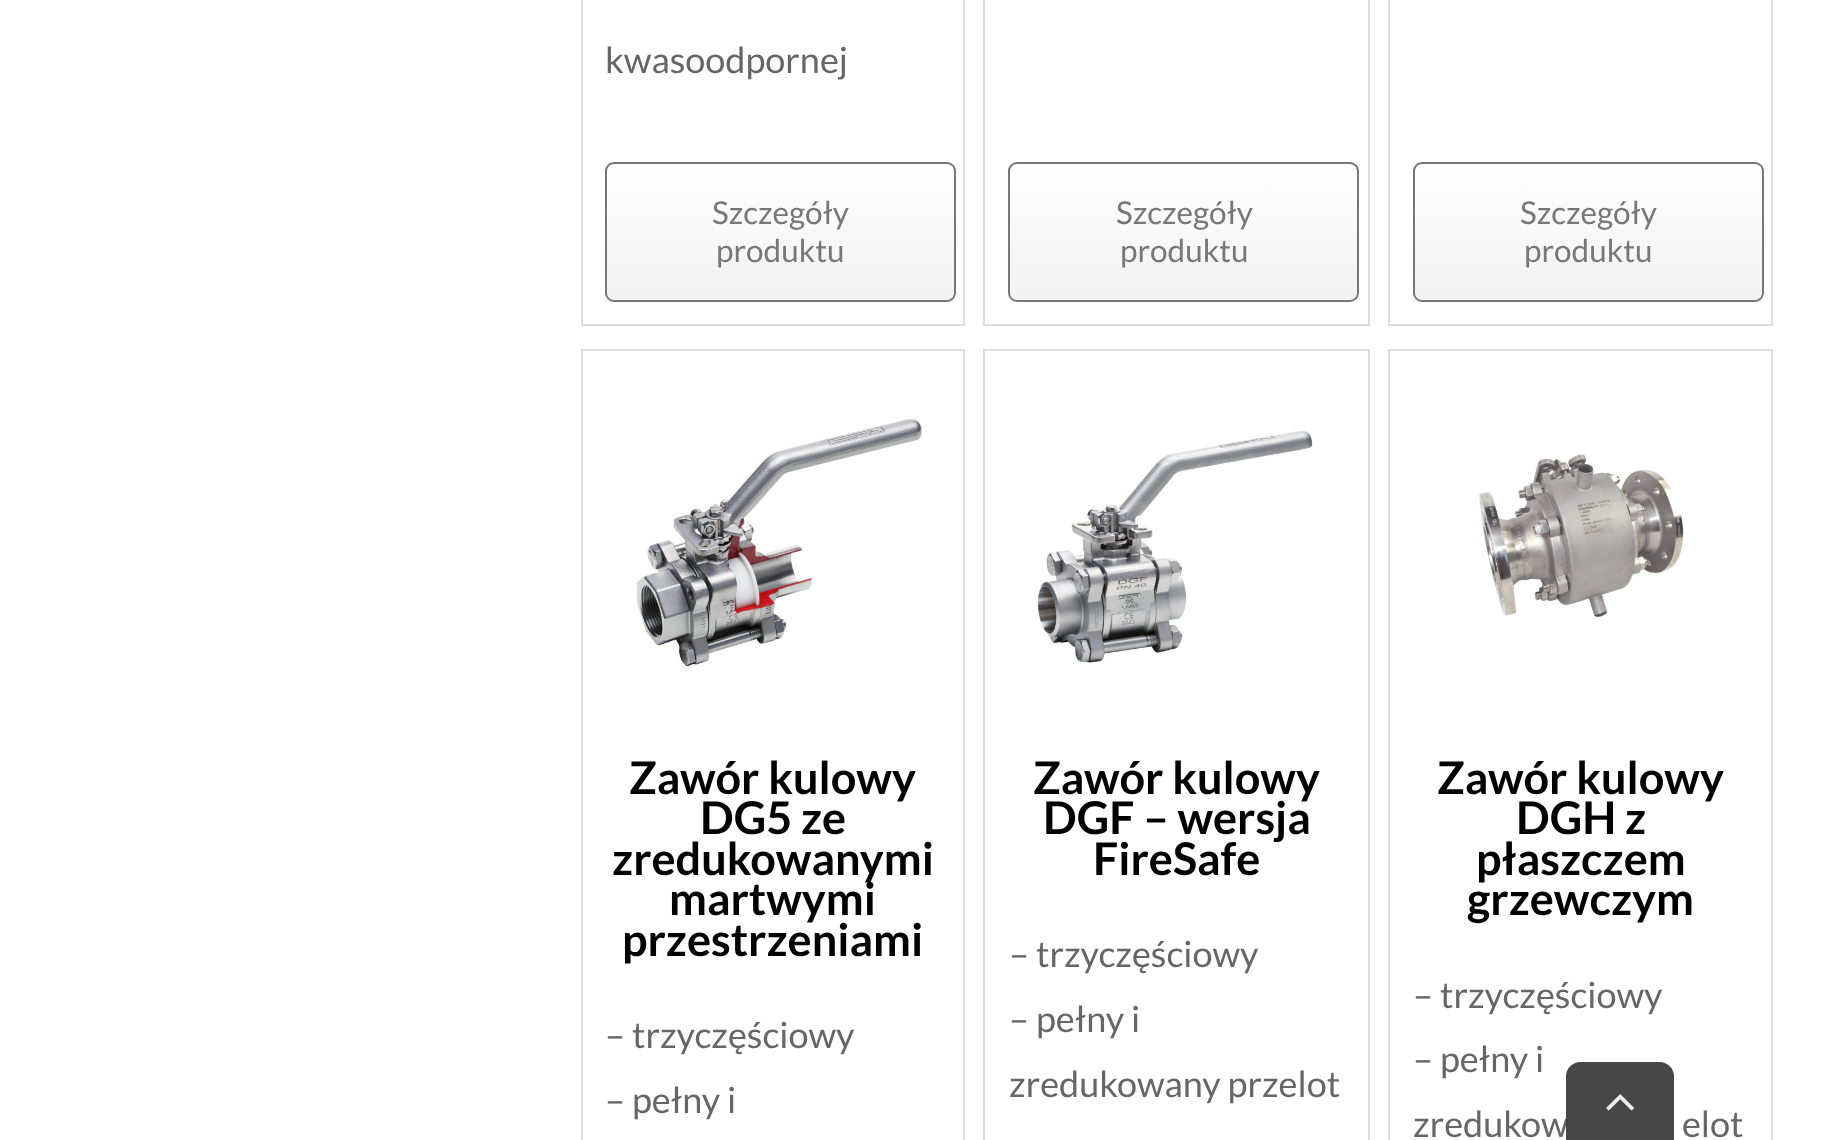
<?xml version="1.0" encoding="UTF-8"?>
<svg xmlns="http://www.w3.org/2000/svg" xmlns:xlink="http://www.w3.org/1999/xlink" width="1842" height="1140">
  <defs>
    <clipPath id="clip1"><rect x="605" y="162" width="351" height="140" rx="9" /></clipPath>
    <linearGradient id="g1" gradientUnits="userSpaceOnUse" x1="781" y1="299" x2="781" y2="164"><stop offset="0" stop-color="#f2f2f2" /><stop offset="1" stop-color="#ffffff" /></linearGradient>
    <clipPath id="clip2"><rect x="1008" y="162" width="351" height="140" rx="9" /></clipPath>
    <linearGradient id="g2" gradientUnits="userSpaceOnUse" x1="1184" y1="299" x2="1184" y2="164"><stop offset="0" stop-color="#f2f2f2" /><stop offset="1" stop-color="#ffffff" /></linearGradient>
    <clipPath id="clip3"><rect x="1413" y="162" width="351" height="140" rx="9" /></clipPath>
    <linearGradient id="g3" gradientUnits="userSpaceOnUse" x1="1589" y1="299" x2="1589" y2="164"><stop offset="0" stop-color="#f2f2f2" /><stop offset="1" stop-color="#ffffff" /></linearGradient>
  </defs>
  <rect width="100%" height="100%" fill="#ffffff" />
  <rect x="582" y="-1" width="382" height="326" fill="none" stroke="#dddddd" stroke-width="2" />
  <g clip-path="url(#clip1)">
    <rect x="605" y="164" width="351" height="135" fill="url(#g1)" />
  </g>
  <rect x="606" y="163" width="349" height="138" rx="8" fill="none" stroke="#777777" stroke-width="2" />
  <rect x="984" y="-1" width="385" height="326" fill="none" stroke="#dddddd" stroke-width="2" />
  <g clip-path="url(#clip2)">
    <rect x="1008" y="164" width="351" height="135" fill="url(#g2)" />
  </g>
  <rect x="1009" y="163" width="349" height="138" rx="8" fill="none" stroke="#777777" stroke-width="2" />
  <rect x="1389" y="-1" width="383" height="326" fill="none" stroke="#dddddd" stroke-width="2" />
  <g clip-path="url(#clip3)">
    <rect x="1413" y="164" width="351" height="135" fill="url(#g3)" />
  </g>
  <rect x="1414" y="163" width="349" height="138" rx="8" fill="none" stroke="#777777" stroke-width="2" />
  <rect x="582" y="350" width="382" height="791" fill="none" stroke="#dddddd" stroke-width="2" />
  <image x="636" y="417" width="286" height="250" xlink:href="image1.png" />
  <rect x="984" y="350" width="385" height="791" fill="none" stroke="#dddddd" stroke-width="2" />
  <image x="1036" y="430" width="277" height="233" xlink:href="image2.png" />
  <rect x="1389" y="350" width="383" height="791" fill="none" stroke="#dddddd" stroke-width="2" />
  <image x="1478" y="453" width="208" height="166" xlink:href="image3.png" />
  <text x="605" y="73" style="font-family: Lato; font-size: 36px; fill: #666666">kwasoodpornej</text>
  <text x="712" y="224" style="font-family: Lato; font-size: 31.5px; fill: #777777">Szczegóły</text>
  <text x="716" y="262" style="font-family: Lato; font-size: 31.5px; fill: #777777">produktu</text>
  <text x="1116" y="224" style="font-family: Lato; font-size: 31.5px; fill: #777777">Szczegóły</text>
  <text x="1120" y="262" style="font-family: Lato; font-size: 31.5px; fill: #777777">produktu</text>
  <text x="1520" y="224" style="font-family: Lato; font-size: 31.5px; fill: #777777">Szczegóły</text>
  <text x="1524" y="262" style="font-family: Lato; font-size: 31.5px; fill: #777777">produktu</text>
  <text x="629" y="794" style="font-family: Lato; font-size: 45px; font-weight: bold; fill: #000000">Zawór kulowy</text>
  <text x="700" y="834" style="font-family: Lato; font-size: 45px; font-weight: bold; fill: #000000">DG5 ze</text>
  <text x="612" y="875" style="font-family: Lato; font-size: 45px; font-weight: bold; fill: #000000">zredukowanymi</text>
  <text x="669" y="915" style="font-family: Lato; font-size: 45px; font-weight: bold; fill: #000000">martwymi</text>
  <text x="622" y="956" style="font-family: Lato; font-size: 45px; font-weight: bold; fill: #000000">przestrzeniami</text>
  <text x="605" y="1048" style="font-family: Lato; font-size: 36px; fill: #666666">– trzyczęściowy</text>
  <text x="605" y="1113" style="font-family: Lato; font-size: 36px; fill: #666666">– pełny i</text>
  <text x="1033" y="794" style="font-family: Lato; font-size: 45px; font-weight: bold; fill: #000000">Zawór kulowy</text>
  <text x="1043" y="834" style="font-family: Lato; font-size: 45px; font-weight: bold; fill: #000000">DGF – wersja</text>
  <text x="1093" y="875" style="font-family: Lato; font-size: 45px; font-weight: bold; fill: #000000">FireSafe</text>
  <text x="1009" y="967" style="font-family: Lato; font-size: 36px; fill: #666666">– trzyczęściowy</text>
  <text x="1009" y="1032" style="font-family: Lato; font-size: 36px; fill: #666666">– pełny i</text>
  <text x="1009" y="1097" style="font-family: Lato; font-size: 36px; fill: #666666">zredukowany przelot</text>
  <text x="1437" y="794" style="font-family: Lato; font-size: 45px; font-weight: bold; fill: #000000">Zawór kulowy</text>
  <text x="1516" y="834" style="font-family: Lato; font-size: 45px; font-weight: bold; fill: #000000">DGH z</text>
  <text x="1476" y="875" style="font-family: Lato; font-size: 45px; font-weight: bold; fill: #000000">płaszczem</text>
  <text x="1467" y="915" style="font-family: Lato; font-size: 45px; font-weight: bold; fill: #000000">grzewczym</text>
  <text x="1413" y="1008" style="font-family: Lato; font-size: 36px; fill: #666666">– trzyczęściowy</text>
  <text x="1413" y="1072" style="font-family: Lato; font-size: 36px; fill: #666666">– pełny i</text>
  <text x="1413" y="1137" style="font-family: Lato; font-size: 36px; fill: #666666">zredukow</text>
  <text x="1682" y="1137" style="font-family: Lato; font-size: 36px; fill: #666666">elot</text>
  <path d="M 1580 1062 h 80 c 7.5 0 14 6.5 14 14 v 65 h -108 v -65 c 0 -7.5 6.5 -14 14 -14 z" fill="#333333" fill-opacity="0.9" />
  <image x="1606" y="1094" width="28" height="17" xlink:href="image4.png" />
</svg>
